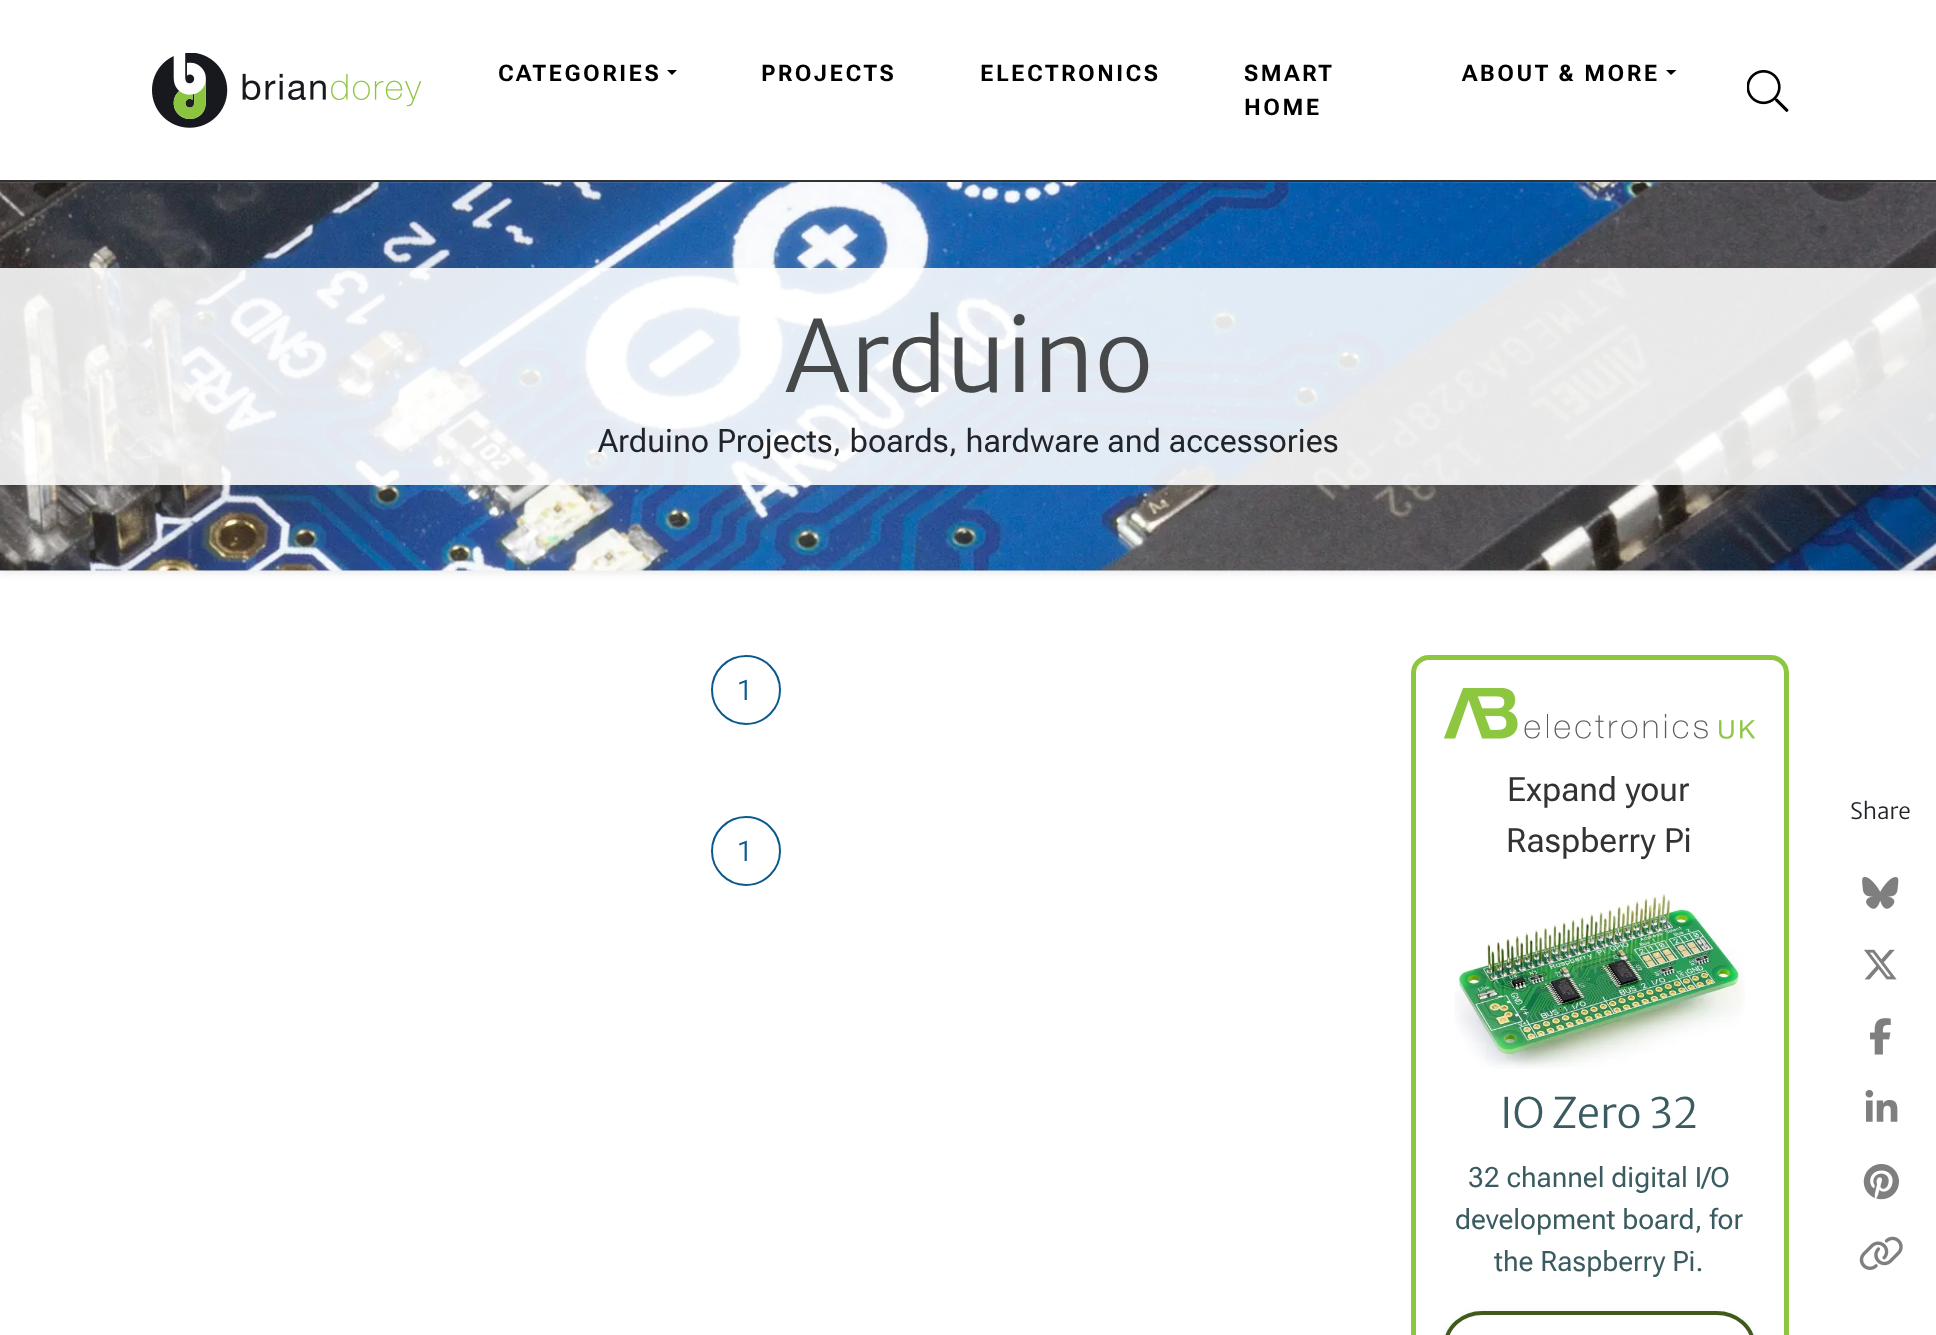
<?xml version="1.0" encoding="UTF-8"?>
<svg xmlns="http://www.w3.org/2000/svg" xmlns:xlink="http://www.w3.org/1999/xlink" width="1936" height="1335">
  <defs>
    <clipPath id="clip1"><path d="M 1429 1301 h 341 v 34 h -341 z m 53.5 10 h 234 c 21.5 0 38.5 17 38.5 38.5 c 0 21.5 -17 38.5 -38.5 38.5 h -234 c -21.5 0 -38.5 -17 -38.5 -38.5 c 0 -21.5 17 -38.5 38.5 -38.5 z" clip-rule="evenodd" /></clipPath>
  </defs>
  <rect width="100%" height="100%" fill="#ffffff" />
  <image x="152" y="53" width="270" height="75" xlink:href="image1.png" />
  <path d="M 667 70 h 10 l -5 5 z" fill="#000000" />
  <path d="M 1666 70 h 10.5 l -5.5 5 z" fill="#000000" />
  <image x="1747" y="70" width="42" height="42" xlink:href="image2.png" />
  <rect y="180" width="1936" height="2" fill="#333333" />
  <rect y="186" width="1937" height="388" fill="#000000" fill-opacity="0.07" filter="blur(3.5px)" />
  <image x="0" y="182" width="1936" height="389" xlink:href="image3.png" />
  <rect y="268" width="1936" height="217" fill="#ffffff" fill-opacity="0.88" />
  <circle cx="746" cy="690" r="34" fill="none" stroke="#0b5a8e" stroke-width="2" />
  <circle cx="746" cy="851" r="34" fill="none" stroke="#0b5a8e" stroke-width="2" />
  <rect x="1413.5" y="657.5" width="373" height="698" rx="15.5" fill="none" stroke="#8dc63f" stroke-width="5" />
  <image x="1444" y="688" width="311" height="51" xlink:href="image4.png" />
  <image x="1454" y="893" width="291" height="176" xlink:href="image5.png" />
  <g clip-path="url(#clip1)">
    <rect x="1444" y="1316" width="311" height="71" rx="38.5" fill="#000000" fill-opacity="0.18" filter="blur(4.5px)" />
  </g>
  <rect x="1446" y="1313" width="307" height="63" rx="36.5" fill="none" stroke="#405a1b" stroke-width="4" />
  <image x="1862" y="877" width="37" height="32" xlink:href="image6.png" />
  <image x="1864" y="949" width="33" height="31" xlink:href="image7.png" />
  <image x="1870" y="1018" width="21" height="37" xlink:href="image8.png" />
  <image x="1865" y="1089" width="33" height="33" xlink:href="image9.png" />
  <image x="1863" y="1164" width="36" height="36" xlink:href="image10.png" />
  <image x="1859" y="1236" width="44" height="34" xlink:href="image11.png" />
  <text x="498" y="81" style="font-family: Roboto Flex; font-size: 22.75px; font-weight: bold; letter-spacing: 2.5px; fill: #000000">CATEGORIES</text>
  <text x="761" y="81" style="font-family: Roboto Flex; font-size: 22.75px; font-weight: bold; letter-spacing: 2.5px; fill: #000000">PROJECTS</text>
  <text x="980" y="81" style="font-family: Roboto Flex; font-size: 22.75px; font-weight: bold; letter-spacing: 2.5px; fill: #000000">ELECTRONICS</text>
  <text x="1244" y="81" style="font-family: Roboto Flex; font-size: 22.75px; font-weight: bold; letter-spacing: 2.5px; fill: #000000">SMART</text>
  <text x="1244" y="115" style="font-family: Roboto Flex; font-size: 22.75px; font-weight: bold; letter-spacing: 2.5px; fill: #000000">HOME</text>
  <text x="1462" y="81" style="font-family: Roboto Flex; font-size: 22.75px; font-weight: bold; letter-spacing: 2.5px; fill: #000000">ABOUT &amp; MORE</text>
  <text x="784" y="392" style="font-family: Merriweather Sans; font-size: 98px; font-weight: 300; fill: #46484a">Arduino</text>
  <text x="598" y="452" style="font-family: Roboto Flex; font-size: 32.2px; fill: #212529">Arduino Projects, boards, hardware and accessories</text>
  <text x="737" y="700" style="font-family: Roboto Flex; font-size: 28px; font-weight: 300; fill: #0b5a8e">1</text>
  <text x="737" y="861" style="font-family: Roboto Flex; font-size: 28px; font-weight: 300; fill: #0b5a8e">1</text>
  <text x="1507" y="801" style="font-family: Roboto Flex; font-size: 33.5px; fill: #333333">Expand your</text>
  <text x="1506" y="852" style="font-family: Roboto Flex; font-size: 33.5px; fill: #333333">Raspberry Pi</text>
  <text x="1500" y="1128" style="font-family: Merriweather Sans; font-size: 42px; font-weight: 300; fill: #3a5b5f">IO Zero 32</text>
  <text x="1468" y="1187" style="font-family: Roboto Flex; font-size: 28px; fill: #3a5b5f">32 channel digital I/O</text>
  <text x="1455" y="1229" style="font-family: Roboto Flex; font-size: 28px; fill: #3a5b5f">development board, for</text>
  <text x="1494" y="1271" style="font-family: Roboto Flex; font-size: 28px; fill: #3a5b5f">the Raspberry Pi.</text>
  <text x="1850" y="819" style="font-family: Merriweather Sans; font-size: 22.5px; font-weight: 300; fill: #212529">Share</text>
</svg>
